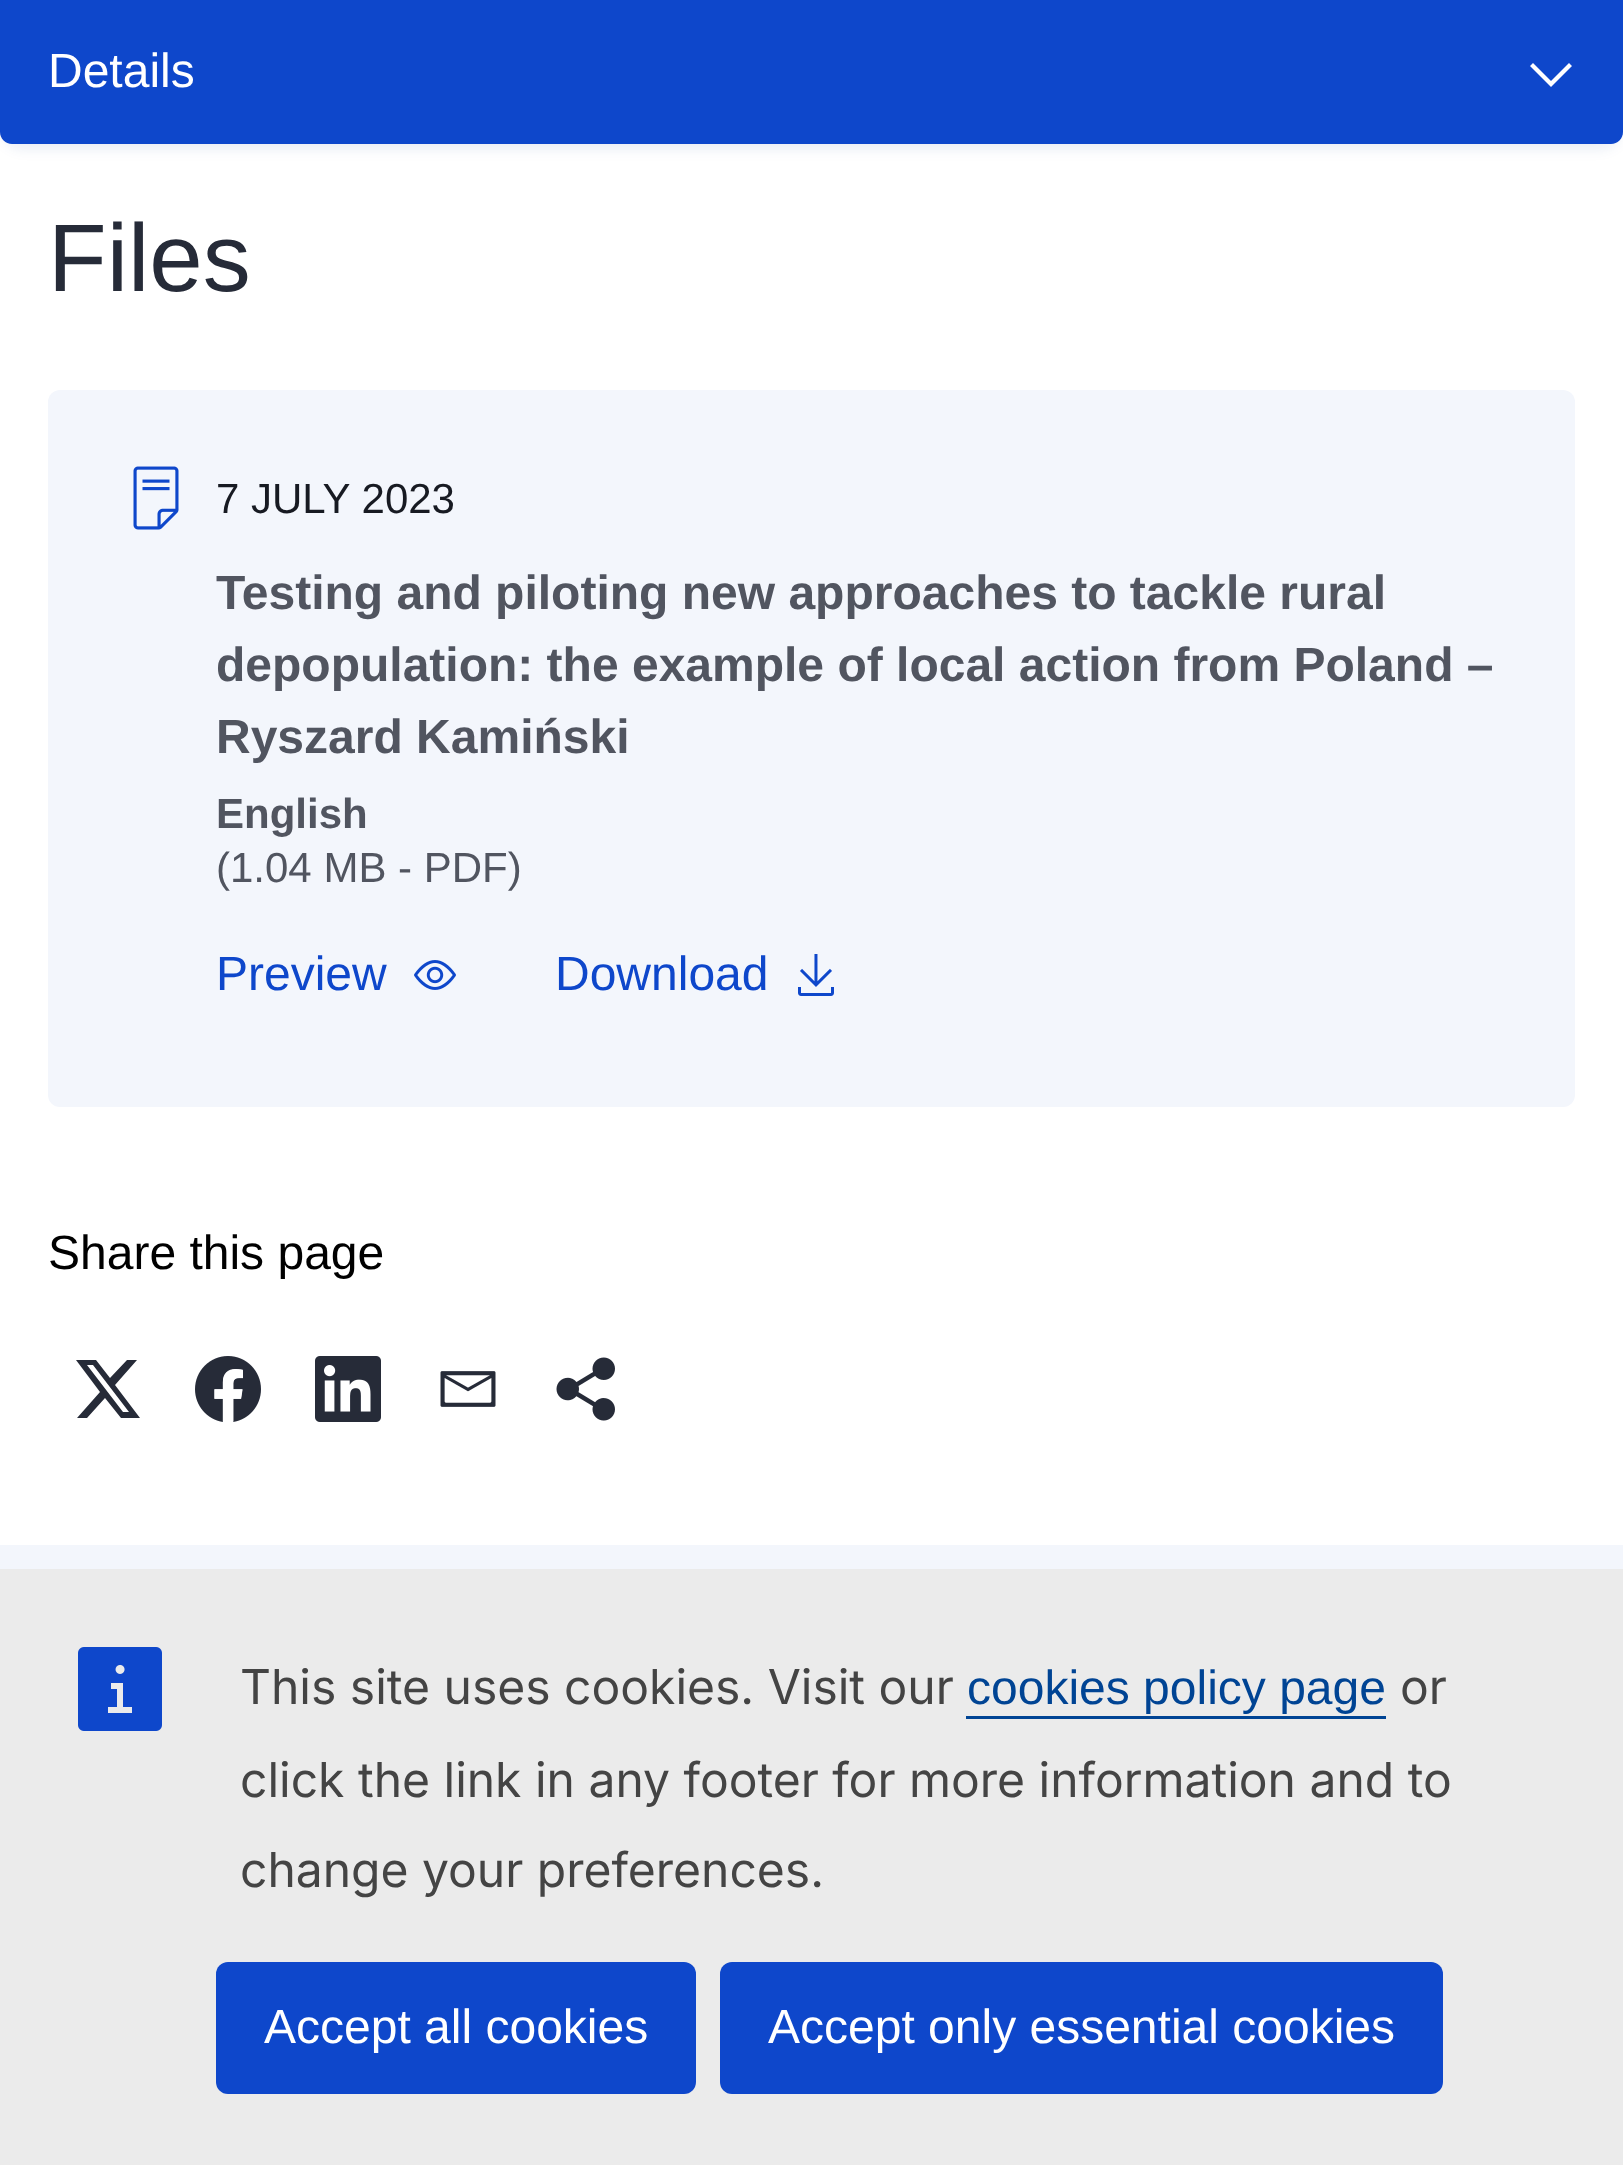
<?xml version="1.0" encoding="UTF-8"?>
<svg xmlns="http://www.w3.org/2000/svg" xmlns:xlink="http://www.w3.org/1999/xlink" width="1623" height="2165">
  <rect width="100%" height="100%" fill="#ffffff" />
  <rect y="6" width="1623" height="144" rx="24" fill="#09318e" fill-opacity="0.08" filter="blur(6px)" />
  <path d="M 0 0 h 1623 v 132 c 0 6.5 -5.5 12 -12 12 h -1599 c -6.5 0 -12 -5.5 -12 -12 z" fill="#0e47cb" />
  <path d="M 1530 66 l 3 -3 l 18 18 l 18 -18 l 3 3 l -21 21 z" fill="#ffffff" />
  <rect x="48" y="390" width="1527" height="717" rx="12" fill="#f3f6fc" />
  <image x="133" y="466" width="46" height="64" xlink:href="image1.png" />
  <image x="414" y="960" width="42" height="30" xlink:href="image2.png" />
  <image x="798" y="954" width="36" height="42" xlink:href="image3.png" />
  <path d="M 127 1360 h 10 l -22 25 l 25 33 h -19 l -16 -20 l -18 20 h -10 l 23 -26 l -24 -32 h 20 l 14 18 z m -4 52 h 6 l -36 -47 h -6 z" fill="#262b38" />
  <image x="195" y="1356" width="66" height="66" xlink:href="image4.png" />
  <image x="315" y="1356" width="66" height="66" xlink:href="image5.png" />
  <image x="440" y="1371" width="56" height="36" xlink:href="image6.png" />
  <image x="556" y="1357" width="59" height="64" xlink:href="image7.png" />
  <rect y="1545" width="1623" height="24" fill="#f3f6fc" />
  <rect y="1569" width="1623" height="596" fill="#ebebeb" />
  <image x="78" y="1647" width="84" height="84" xlink:href="image8.png" />
  <rect x="966" y="1716" width="420" height="3" fill="#004494" />
  <rect x="216" y="1962" width="480" height="132" rx="12" fill="#0e47cb" />
  <rect x="720" y="1962" width="723" height="132" rx="12" fill="#0e47cb" />
  <text x="48" y="87" style="font-family: Liberation Sans; font-size: 48px; fill: #ffffff">Details</text>
  <text x="48" y="291" style="font-family: Liberation Sans; font-size: 96px; fill: #262b38">Files</text>
  <text x="216" y="513" style="font-family: Liberation Sans; font-size: 42px; fill: #171a22">7 JULY 2023</text>
  <text x="216" y="609" style="font-family: Liberation Sans; font-size: 48px; font-weight: bold; fill: #515560">Testing and piloting new approaches to tackle rural</text>
  <text x="216" y="681" style="font-family: Liberation Sans; font-size: 48px; font-weight: bold; fill: #515560">depopulation: the example of local action from Poland –</text>
  <text x="216" y="753" style="font-family: Liberation Sans; font-size: 48px; font-weight: bold; fill: #515560">Ryszard Kamiński</text>
  <text x="216" y="828" style="font-family: Liberation Sans; font-size: 42px; font-weight: bold; fill: #515560">English</text>
  <text x="216" y="882" style="font-family: Liberation Sans; font-size: 42px; fill: #515560">(1.04 MB - PDF)</text>
  <text x="216" y="990" style="font-family: Liberation Sans; font-size: 48px; fill: #0e47cb">Preview</text>
  <text x="555" y="990" style="font-family: Liberation Sans; font-size: 48px; fill: #0e47cb">Download</text>
  <text x="48" y="1269" style="font-family: Liberation Sans; font-size: 48px; fill: #000000">Share this page</text>
  <text x="240" y="1704" style="font-family: Inter; font-size: 48px; fill: #444444">This site uses cookies. Visit our</text>
  <text x="967" y="1704" style="font-family: Liberation Sans; font-size: 48px; fill: #004494">cookies policy page</text>
  <text x="1400" y="1704" style="font-family: Inter; font-size: 48px; fill: #444444">or</text>
  <text x="240" y="1797" style="font-family: Inter; font-size: 48px; fill: #444444">click the link in any footer for more information and to</text>
  <text x="240" y="1887" style="font-family: Inter; font-size: 48px; fill: #444444">change your preferences.</text>
  <text x="264" y="2043" style="font-family: Liberation Sans; font-size: 48px; fill: #ffffff">Accept all cookies</text>
  <text x="768" y="2043" style="font-family: Liberation Sans; font-size: 48px; fill: #ffffff">Accept only essential cookies</text>
</svg>
